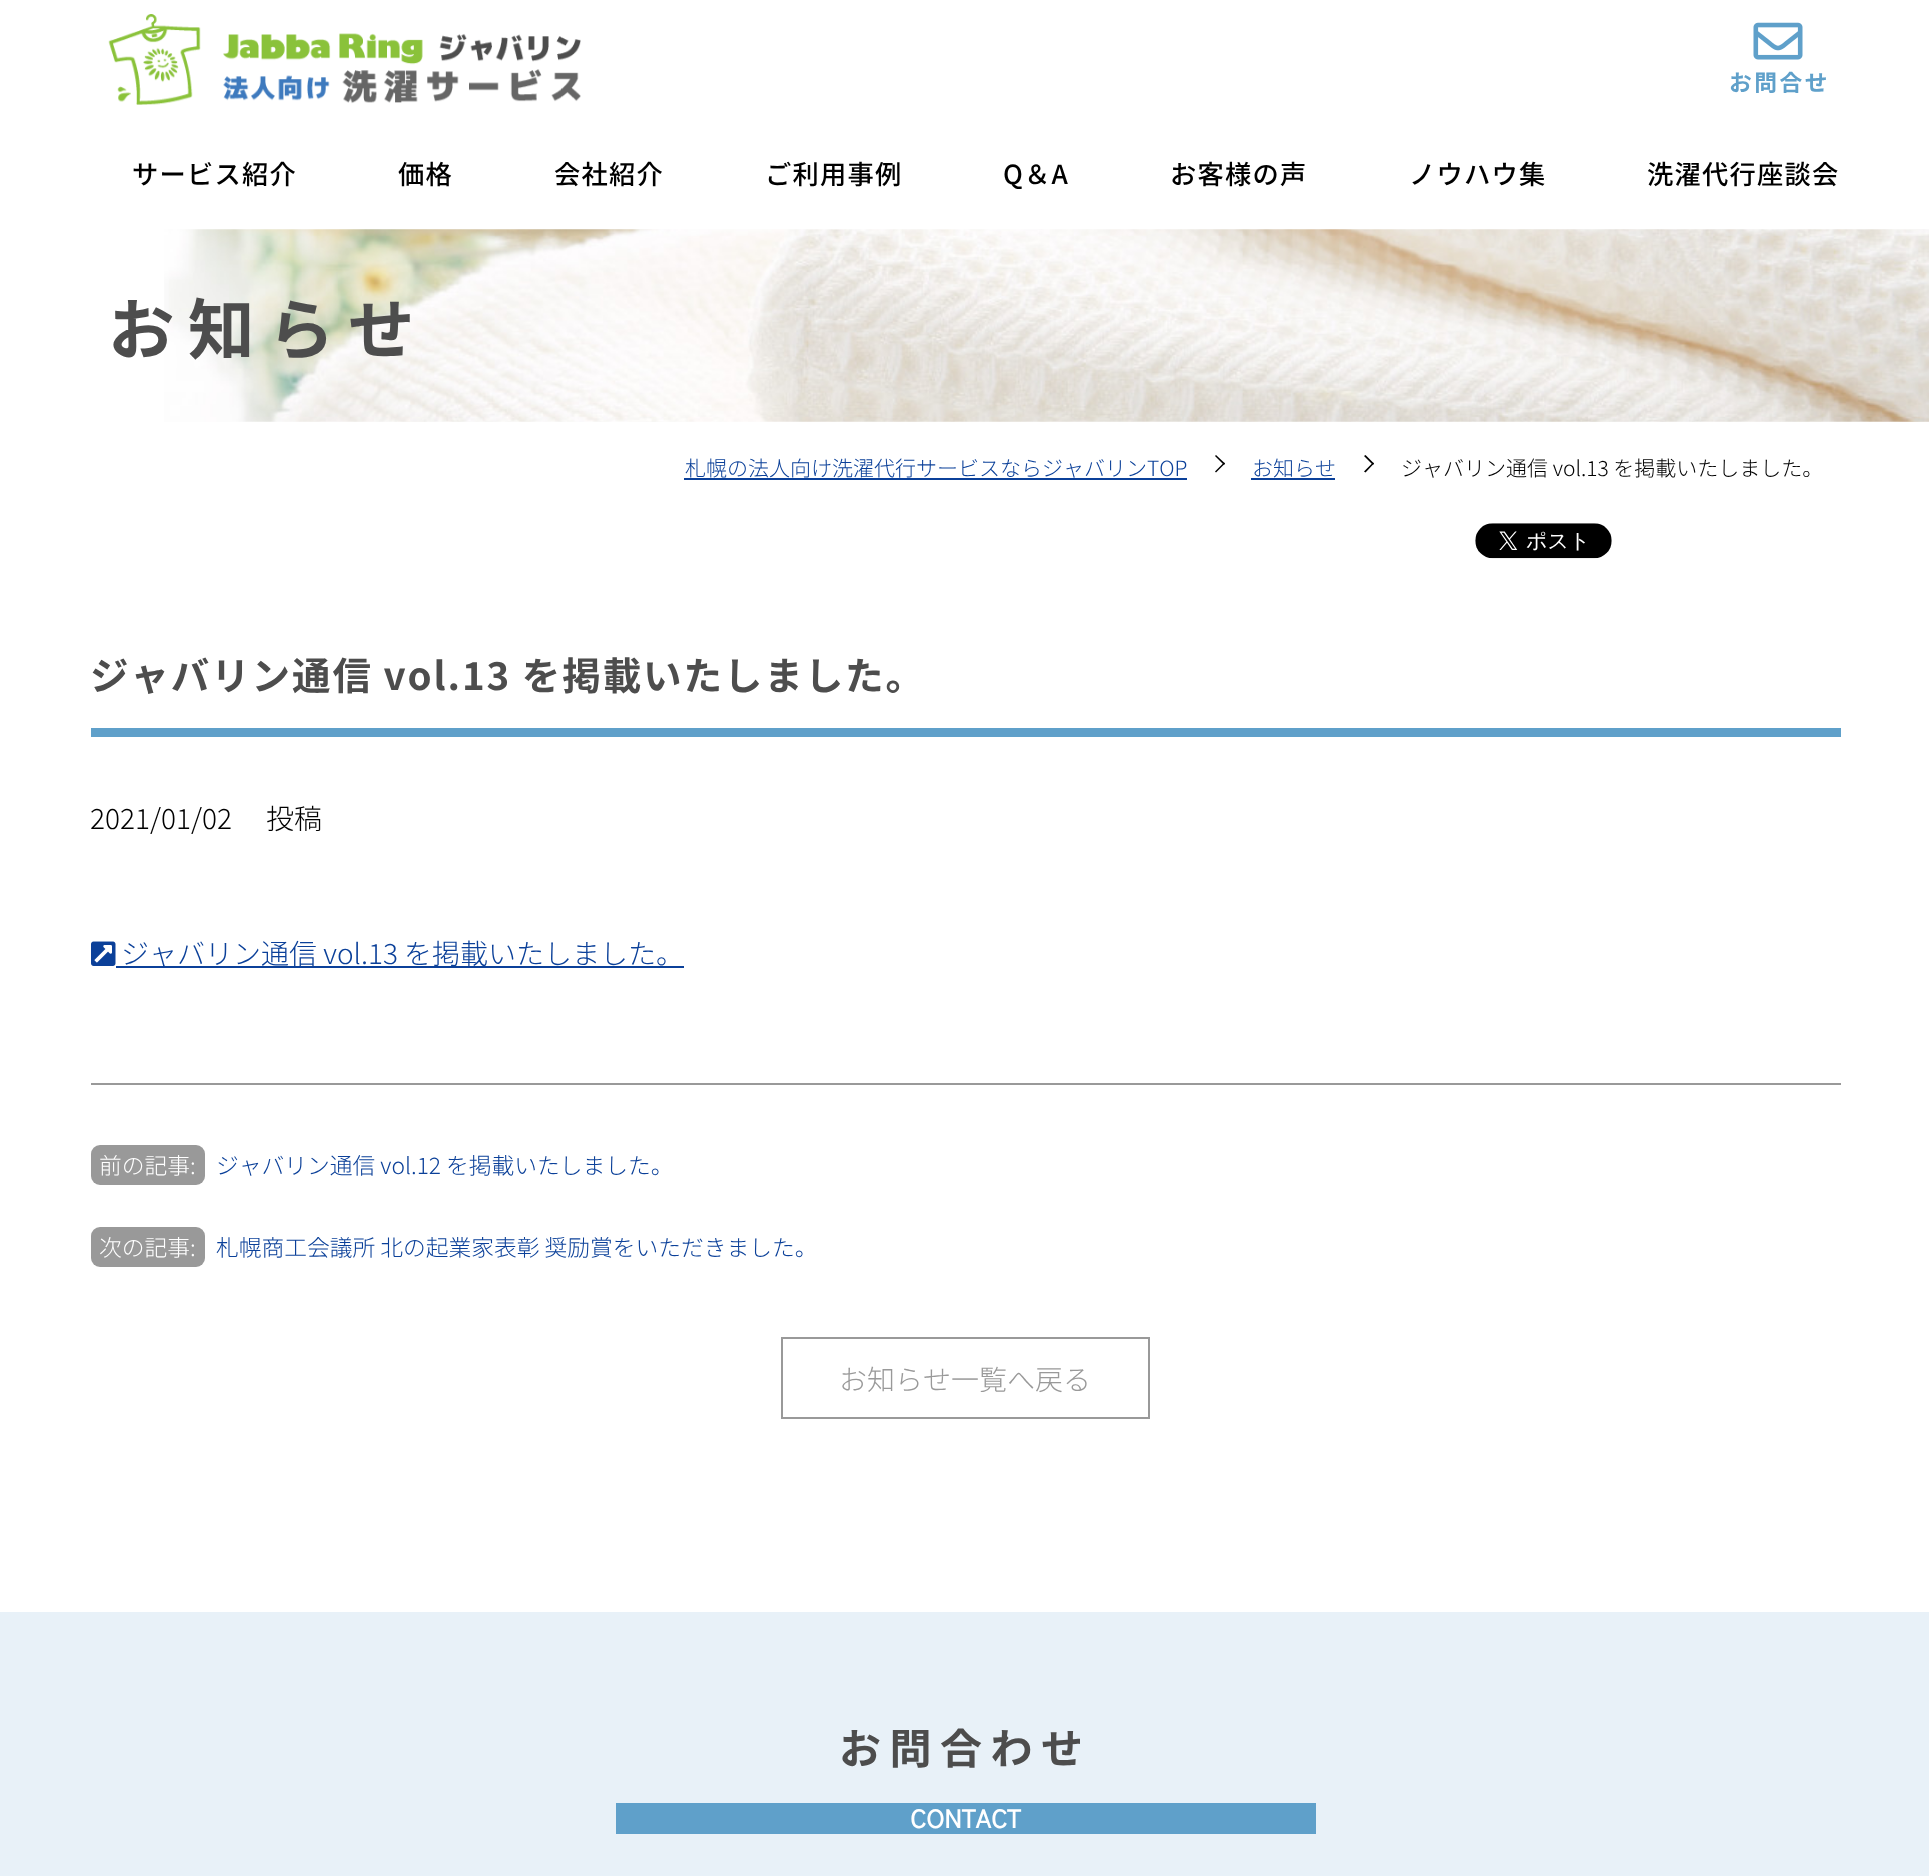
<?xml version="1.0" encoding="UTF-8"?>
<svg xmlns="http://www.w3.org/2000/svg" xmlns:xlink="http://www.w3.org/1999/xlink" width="1929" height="1876">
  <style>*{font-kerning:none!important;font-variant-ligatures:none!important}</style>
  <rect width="100%" height="100%" fill="#ffffff" />
  <image x="108" y="14" width="473" height="91" xlink:href="image1.png" />
  <image x="1753" y="22" width="50" height="38" xlink:href="image2.png" />
  <image x="164" y="229" width="1765" height="193" xlink:href="image3.png" />
  <rect x="684" y="478" width="503" height="2" fill="#0b4099" />
  <path d="M 1216 455 l 9 8.5 l -1 1.5 l -9 -9 z" fill="#000000" />
  <path d="M 1224 462.5 l 1 1 l -9 9 l -1 -1 z" fill="#000000" />
  <rect x="1251" y="478" width="84" height="2" fill="#0b4099" />
  <path d="M 1365.5 455 l 8.5 8.5 l -1 1.5 l -9 -9 z" fill="#000000" />
  <path d="M 1373 462.5 l 1 1 l -8.5 9 l -1.5 -1 z" fill="#000000" />
  <image x="1475" y="523" width="137" height="36" xlink:href="image4.png" />
  <rect x="91" y="728" width="1750" height="9" fill="#5fa0ca" />
  <image x="91" y="941" width="25" height="25" xlink:href="image5.png" />
  <rect x="116" y="966" width="568" height="2" fill="#0b4099" />
  <rect x="91" y="1083" width="1750" height="2" fill="#999999" />
  <rect x="91" y="1145" width="114" height="40" rx="9" fill="#999999" />
  <rect x="91" y="1227" width="114" height="40" rx="9" fill="#999999" />
  <rect x="782" y="1338" width="367" height="80" fill="none" stroke="#999999" stroke-width="2" />
  <rect y="1612" width="1929" height="264" fill="#e8f1f8" />
  <rect x="616" y="1803" width="700" height="31" fill="#5fa0ca" />
  <text x="1729" y="91" style="font-family: Noto Sans JP; font-size: 22.75px; font-weight: bold; letter-spacing: 2.5px; fill: #5fa0ca">お問合せ</text>
  <text x="132" y="184" style="font-family: Noto Sans JP; font-size: 26.25px; font-weight: 500; letter-spacing: 1.25px; fill: #000000">サービス紹介</text>
  <text x="398" y="184" style="font-family: Noto Sans JP; font-size: 26.25px; font-weight: 500; letter-spacing: 1.25px; fill: #000000">価格</text>
  <text x="554" y="184" style="font-family: Noto Sans JP; font-size: 26.25px; font-weight: 500; letter-spacing: 1.25px; fill: #000000">会社紹介</text>
  <text x="765" y="184" style="font-family: Noto Sans JP; font-size: 26.25px; font-weight: 500; letter-spacing: 1.25px; fill: #000000">ご利用事例</text>
  <text x="1003" y="184" style="font-family: Noto Sans JP; font-size: 26.25px; font-weight: 500; letter-spacing: 1.25px; fill: #000000">Q＆A</text>
  <text x="1170" y="184" style="font-family: Noto Sans JP; font-size: 26.25px; font-weight: 500; letter-spacing: 1.25px; fill: #000000">お客様の声</text>
  <text x="1409" y="184" style="font-family: Noto Sans JP; font-size: 26.25px; font-weight: 500; letter-spacing: 1.25px; fill: #000000">ノウハウ集</text>
  <text x="1647" y="184" style="font-family: Noto Sans JP; font-size: 26.25px; font-weight: 500; letter-spacing: 1.25px; fill: #000000">洗濯代行座談会</text>
  <text x="108" y="354" style="font-family: Noto Sans JP; font-size: 66.5px; font-weight: bold; letter-spacing: 13.5px; fill: #4d4d4d">お知らせ</text>
  <text x="685" y="476" style="font-family: Noto Sans JP; font-size: 21px; font-weight: 300; fill: #0b4099">札幌の法人向け洗濯代行サービスならジャバリンTOP</text>
  <text x="1252" y="476" style="font-family: Noto Sans JP; font-size: 21px; font-weight: 300; fill: #0b4099">お知らせ</text>
  <text x="1401" y="476" style="font-family: Noto Sans JP; font-size: 21px; font-weight: 300; fill: #000000">ジャバリン通信 vol.13 を掲載いたしました。</text>
  <text x="90" y="690" style="font-family: Noto Sans JP; font-size: 38.5px; font-weight: bold; letter-spacing: 1.9px; fill: #4d4d4d">ジャバリン通信 vol.13 を掲載いたしました。</text>
  <text x="90" y="829" style="font-family: Noto Sans JP; font-size: 28px; font-weight: 300; fill: #000000">2021/01/02</text>
  <text x="266" y="829" style="font-family: Noto Sans JP; font-size: 28px; font-weight: 300; fill: #000000">投稿</text>
  <text x="121" y="964" style="font-family: Noto Sans JP; font-size: 28px; font-weight: 300; fill: #0b4099">ジャバリン通信 vol.13 を掲載いたしました。</text>
  <text x="99" y="1174" style="font-family: Noto Sans JP; font-size: 22.75px; font-weight: 300; fill: #ffffff">前の記事:</text>
  <text x="216" y="1174" style="font-family: Noto Sans JP; font-size: 22.75px; font-weight: 300; fill: #0b4099">ジャバリン通信 vol.12 を掲載いたしました。</text>
  <text x="99" y="1256" style="font-family: Noto Sans JP; font-size: 22.75px; font-weight: 300; fill: #ffffff">次の記事:</text>
  <text x="216" y="1256" style="font-family: Noto Sans JP; font-size: 22.75px; font-weight: 300; fill: #0b4099">札幌商工会議所 北の起業家表彰 奨励賞をいただきました。</text>
  <text x="839" y="1390" style="font-family: Noto Sans JP; font-size: 28px; font-weight: 300; fill: #999999">お知らせ一覧へ戻る</text>
  <text x="839" y="1764" style="font-family: Noto Sans JP; font-size: 42px; font-weight: bold; letter-spacing: 8.5px; fill: #4d4d4d">お問合わせ</text>
  <text x="910" y="1828" style="font-family: Didact Gothic; font-size: 26.25px; font-weight: bold; fill: #ffffff">CONTACT</text>
</svg>
